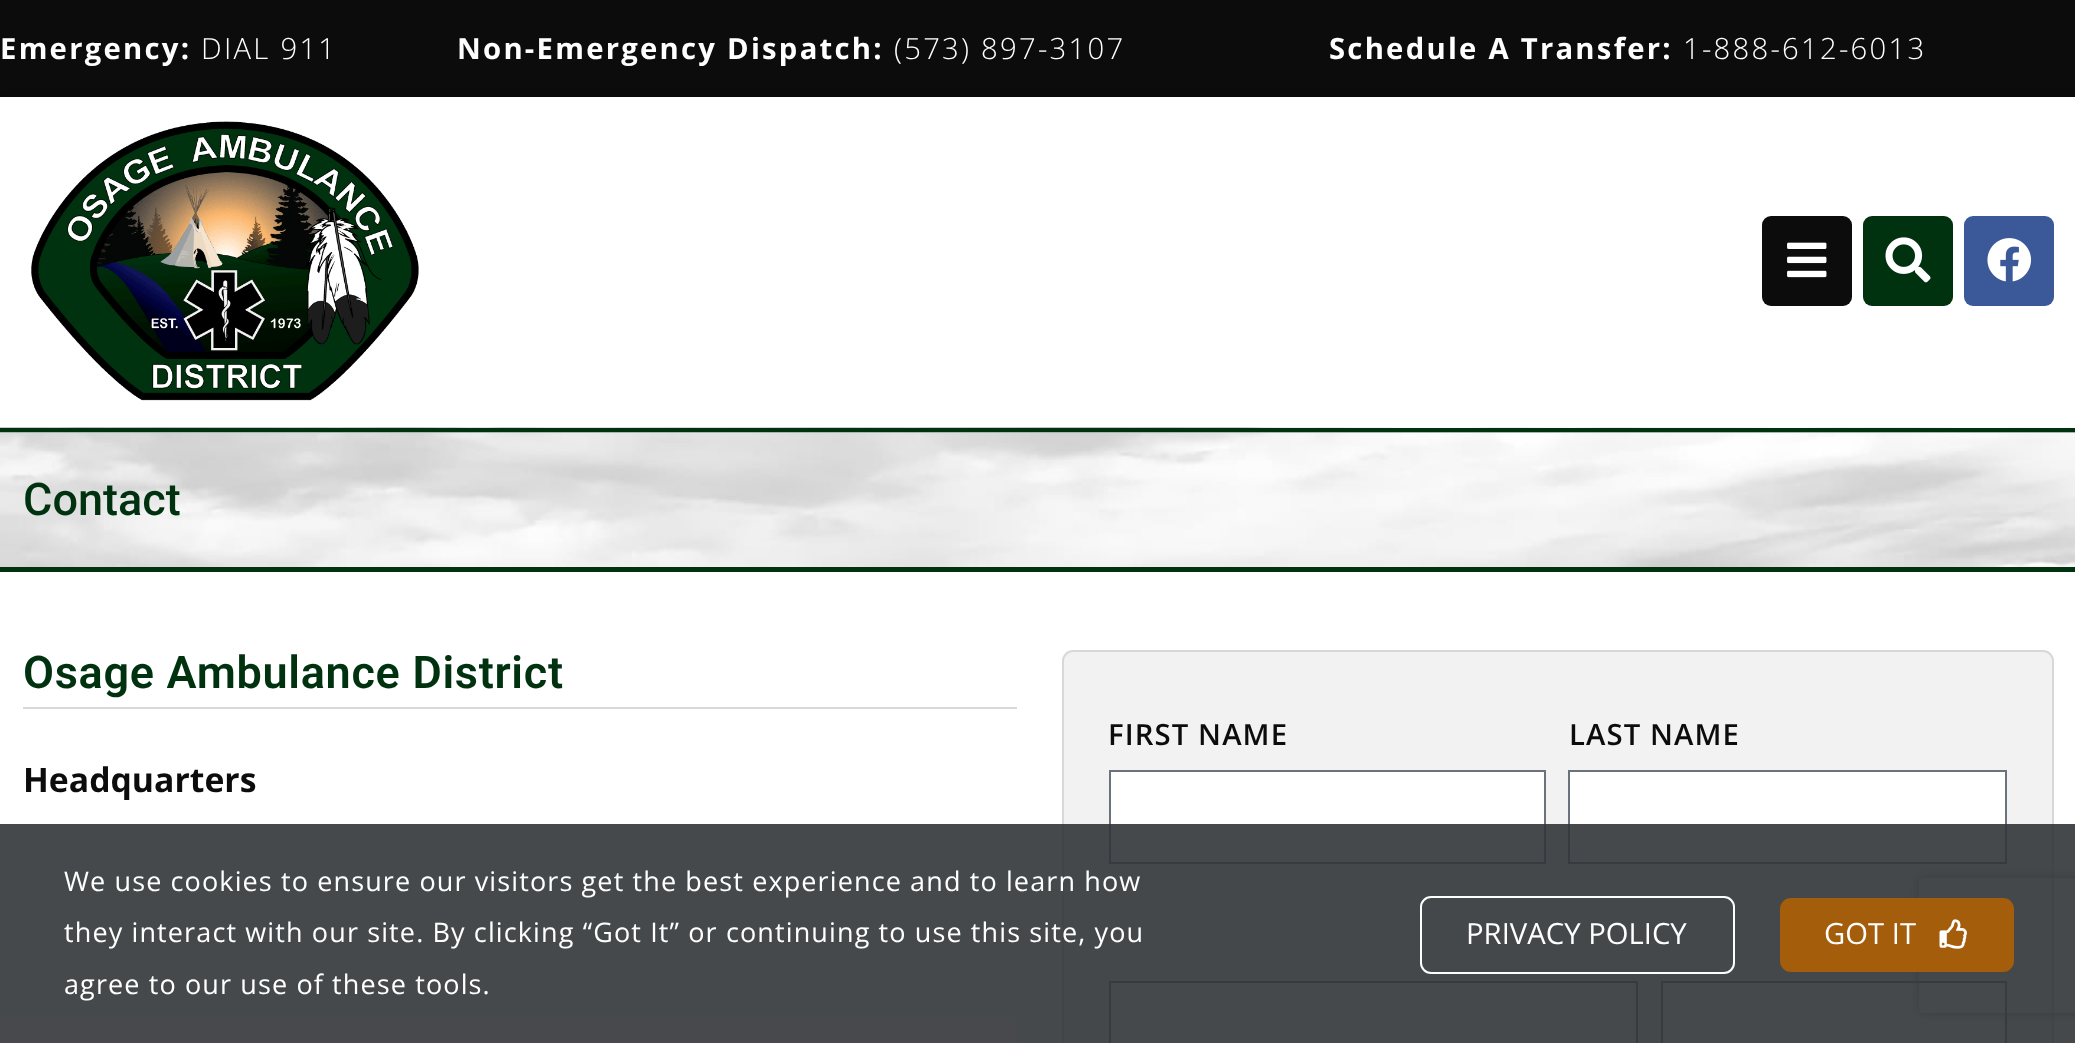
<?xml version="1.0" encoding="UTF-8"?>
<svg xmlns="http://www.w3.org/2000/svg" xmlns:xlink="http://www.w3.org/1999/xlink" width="2075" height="1043">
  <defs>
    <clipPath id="clip1"><path d="M 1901 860 h 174 v 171 h -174 z m 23 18 h 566 c 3 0 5 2 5 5 v 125 c 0 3 -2 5 -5 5 h -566 c -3 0 -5 -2 -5 -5 v -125 c 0 -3 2 -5 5 -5 z" clip-rule="evenodd" /></clipPath>
  </defs>
  <rect width="100%" height="100%" fill="#ffffff" />
  <rect width="2075" height="97" fill="#0c0c0c" />
  <rect x="5" y="101" width="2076" height="331" fill="#000000" fill-opacity="0.5" filter="blur(5.5px)" />
  <rect y="97" width="2075" height="331" fill="#ffffff" />
  <image x="31" y="121" width="388" height="280" xlink:href="image1.png" />
  <rect x="1762" y="216" width="90" height="90" rx="9" fill="#0c0c0c" />
  <image x="1787" y="242" width="40" height="36" xlink:href="image2.png" />
  <rect x="1863" y="216" width="90" height="90" rx="9" fill="#003210" />
  <image x="1885" y="237" width="46" height="46" xlink:href="image3.png" />
  <rect x="1964" y="216" width="90" height="90" rx="9" fill="#3b5998" />
  <image x="1987" y="238" width="45" height="44" xlink:href="image4.png" />
  <image x="0" y="427" width="2075" height="140" xlink:href="image5.png" />
  <rect y="428" width="2075" height="5" fill="#003210" />
  <rect y="567" width="2075" height="5" fill="#003210" />
  <rect y="432" width="2075" height="135" fill="#ffffff" fill-opacity="0.65" />
  <rect x="23" y="707" width="994" height="2" fill="#d8d8d8" />
  <rect x="1063" y="651" width="990" height="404" rx="10" fill="#f2f2f2" stroke="#d8d8d8" stroke-width="2" />
  <rect x="1110" y="771" width="435" height="92" fill="#ffffff" stroke="#69727d" stroke-width="2" />
  <rect x="1569" y="771" width="437" height="92" fill="#ffffff" stroke="#69727d" stroke-width="2" />
  <rect x="1110" y="982" width="527" height="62" fill="#ffffff" stroke="#69727d" stroke-width="2" />
  <rect x="1662" y="982" width="344" height="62" fill="#ffffff" stroke="#69727d" stroke-width="2" />
  <g clip-path="url(#clip1)">
    <rect x="1919" y="878" width="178" height="135" rx="5" fill="#808080" filter="blur(5.5px)" />
  </g>
  <rect y="824" width="2075" height="219" fill="#323539" fill-opacity="0.9" />
  <rect x="1421" y="897" width="313" height="76" rx="10" fill="none" stroke="#ffffff" stroke-width="2" />
  <rect x="1780" y="898" width="234" height="74" rx="11" fill="#a45d0b" />
  <image x="1939" y="919" width="28" height="30" xlink:href="image6.png" />
  <text x="0" y="59" style="font-family: Open Sans; font-size: 29.25px; font-weight: bold; letter-spacing: 2.25px; fill: #ffffff">Emergency:</text>
  <text x="201" y="59" style="font-family: Open Sans; font-size: 29.25px; font-weight: 300; letter-spacing: 2.25px; fill: #ffffff">DIAL 911</text>
  <text x="457" y="59" style="font-family: Open Sans; font-size: 29.25px; font-weight: bold; letter-spacing: 2.25px; fill: #ffffff">Non-Emergency Dispatch:</text>
  <text x="894" y="59" style="font-family: Open Sans; font-size: 29.25px; font-weight: 300; letter-spacing: 2.25px; fill: #ffffff">(573) 897-3107</text>
  <text x="1329" y="59" style="font-family: Open Sans; font-size: 29.25px; font-weight: bold; letter-spacing: 2.25px; fill: #ffffff">Schedule A Transfer:</text>
  <text x="1683" y="59" style="font-family: Open Sans; font-size: 29.25px; font-weight: 300; letter-spacing: 2.25px; fill: #ffffff">1-888-612-6013</text>
  <text x="23" y="515" style="font-family: Roboto; font-size: 45px; font-weight: 500; fill: #003210">Contact</text>
  <text x="23" y="688" style="font-family: Roboto; font-size: 45px; font-weight: 600; letter-spacing: 0.7px; fill: #003210">Osage Ambulance District</text>
  <text x="23" y="792" style="font-family: Open Sans; font-size: 33.75px; font-weight: bold; fill: #0c0c0c">Headquarters</text>
  <text x="1108" y="745" style="font-family: Open Sans; font-size: 29.25px; font-weight: 600; letter-spacing: 1.12px; fill: #0c0c0c">FIRST NAME</text>
  <text x="1569" y="745" style="font-family: Open Sans; font-size: 29.25px; font-weight: 600; letter-spacing: 1.12px; fill: #0c0c0c">LAST NAME</text>
  <text x="64" y="891" style="font-family: Open Sans; font-size: 27px; letter-spacing: 1.12px; fill: #ffffff">We use cookies to ensure our visitors get the best experience and to learn how</text>
  <text x="64" y="942" style="font-family: Open Sans; font-size: 27px; letter-spacing: 1.12px; fill: #ffffff">they interact with our site. By clicking “Got It” or continuing to use this site, you</text>
  <text x="64" y="994" style="font-family: Open Sans; font-size: 27px; letter-spacing: 1.12px; fill: #ffffff">agree to our use of these tools.</text>
  <text x="1466" y="944" style="font-family: Open Sans; font-size: 29.25px; fill: #ffffff">PRIVACY POLICY</text>
  <text x="1824" y="944" style="font-family: Open Sans; font-size: 29.25px; fill: #ffffff">GOT IT</text>
</svg>
